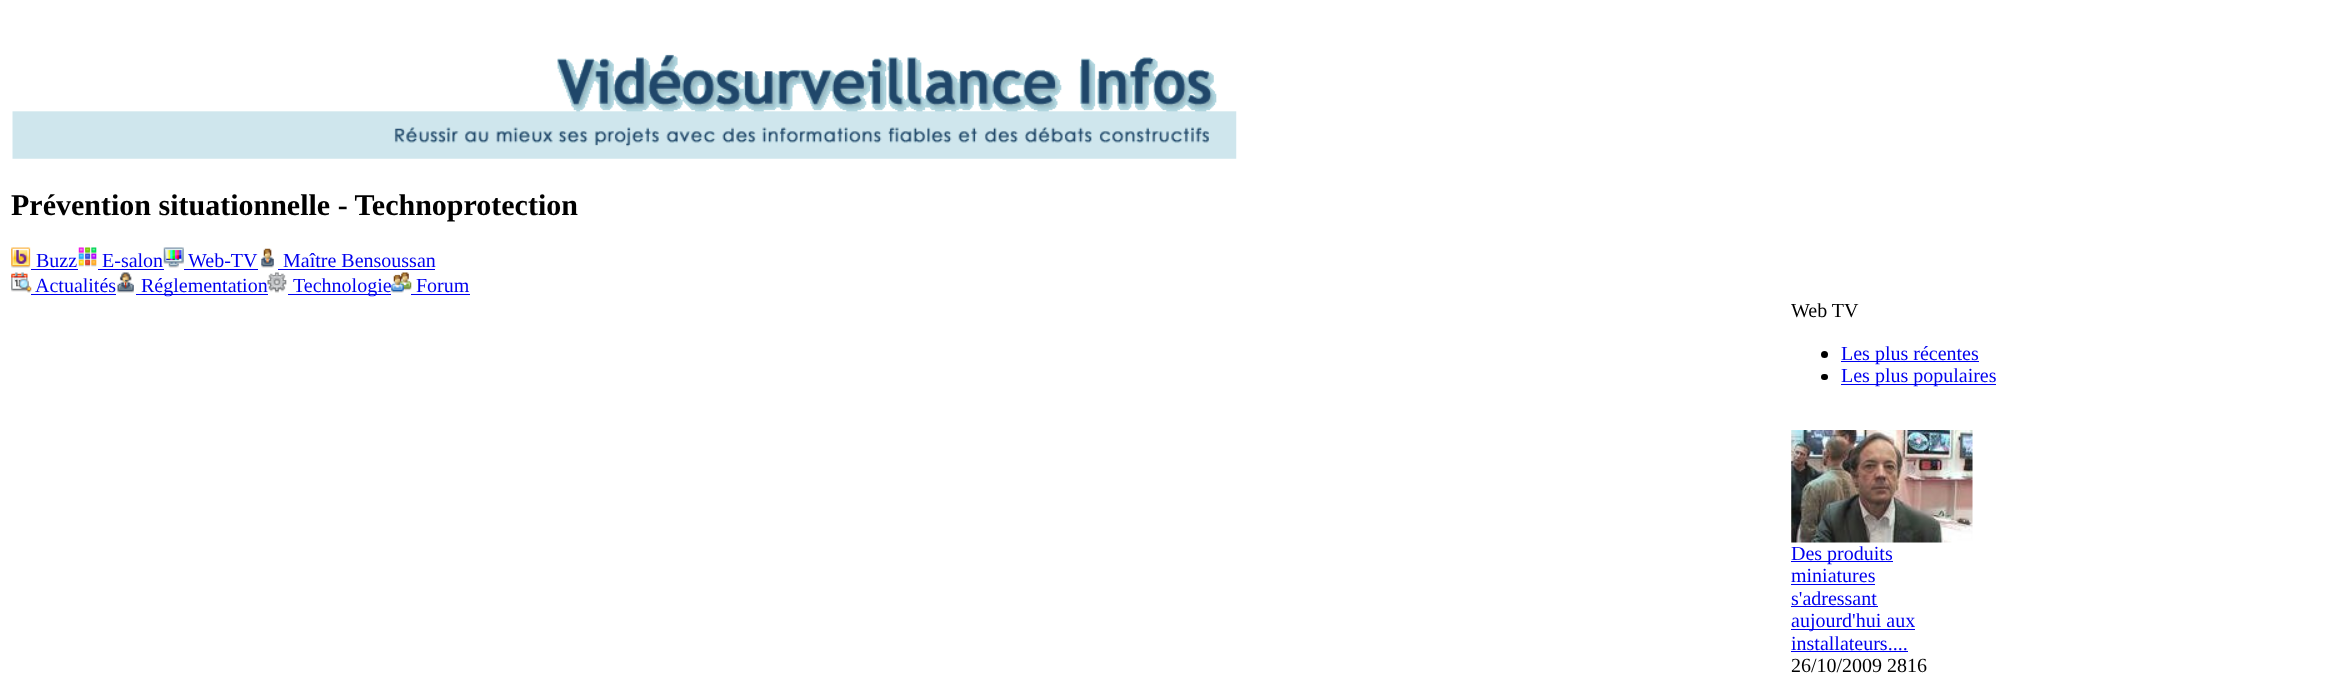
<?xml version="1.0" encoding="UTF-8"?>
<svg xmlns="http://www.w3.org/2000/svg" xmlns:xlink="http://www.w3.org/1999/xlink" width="2345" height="687">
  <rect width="100%" height="100%" fill="#ffffff" />
  <image x="12" y="54" width="1225" height="105" xlink:href="image1.png" />
  <image x="11" y="247" width="20" height="21" xlink:href="image2.png" />
  <rect x="31" y="269" width="47" height="1" fill="#0000ee" />
  <image x="78" y="247" width="19" height="20" xlink:href="image3.png" />
  <rect x="98" y="269" width="66" height="1" fill="#0000ee" />
  <rect x="184" y="269" width="74" height="1" fill="#0000ee" />
  <image x="261" y="248" width="13" height="20" xlink:href="image5.png" />
  <rect x="278" y="269" width="157" height="1" fill="#0000ee" />
  <image x="11" y="272" width="21" height="21" xlink:href="image6.png" />
  <rect x="31" y="294" width="85" height="1" fill="#0000ee" />
  <image x="117" y="272" width="17" height="21" xlink:href="image7.png" />
  <rect x="136" y="294" width="132" height="1" fill="#0000ee" />
  <rect x="288" y="294" width="103" height="1" fill="#0000ee" />
  <image x="391" y="272" width="21" height="21" xlink:href="image9.png" />
  <rect x="411" y="294" width="59" height="1" fill="#0000ee" />
  <circle cx="1824.5" cy="354.5" r="3.5" fill="#000000" />
  <rect x="1841" y="361" width="138" height="1" fill="#0000ee" />
  <rect x="1821" y="374" width="7" height="6" rx="3" fill="#000000" />
  <rect x="1841" y="384" width="155" height="1" fill="#0000ee" />
  <image x="1791" y="430" width="182" height="113" xlink:href="image10.png" />
  <rect x="1791" y="561" width="102" height="1" fill="#0000ee" />
  <rect x="1791" y="584" width="84" height="1" fill="#0000ee" />
  <rect x="1791" y="606" width="87" height="1" fill="#0000ee" />
  <rect x="1791" y="629" width="124" height="1" fill="#0000ee" />
  <rect x="1791" y="651" width="117" height="1" fill="#0000ee" />
  <text x="11" y="215" style="font-family: Liberation Serif; font-size: 30px; font-weight: bold; fill: #000000">Prévention situationnelle - Technoprotection</text>
  <text x="36" y="267" style="font-family: Liberation Serif; font-size: 20px; fill: #0000ee">Buzz</text>
  <text x="102" y="267" style="font-family: Liberation Serif; font-size: 20px; fill: #0000ee">E-salon</text>
  <image x="163" y="247" width="21" height="21" xlink:href="image4.png" />
  <text x="188" y="267" style="font-family: Liberation Serif; font-size: 20px; fill: #0000ee">Web-TV</text>
  <text x="283" y="267" style="font-family: Liberation Serif; font-size: 20px; fill: #0000ee">Maître Bensoussan</text>
  <text x="35" y="292" style="font-family: Liberation Serif; font-size: 20px; fill: #0000ee">Actualités</text>
  <text x="141" y="292" style="font-family: Liberation Serif; font-size: 20px; fill: #0000ee">Réglementation</text>
  <image x="267" y="272" width="20" height="21" xlink:href="image8.png" />
  <text x="293" y="292" style="font-family: Liberation Serif; font-size: 20px; fill: #0000ee">Technologie</text>
  <text x="416" y="292" style="font-family: Liberation Serif; font-size: 20px; fill: #0000ee">Forum</text>
  <text x="1791" y="317" style="font-family: Liberation Serif; font-size: 20px; fill: #000000">Web TV</text>
  <text x="1841" y="360" style="font-family: Liberation Serif; font-size: 20px; fill: #0000ee">Les plus récentes</text>
  <text x="1841" y="382" style="font-family: Liberation Serif; font-size: 20px; fill: #0000ee">Les plus populaires</text>
  <text x="1791" y="560" style="font-family: Liberation Serif; font-size: 20px; fill: #0000ee">Des produits</text>
  <text x="1791" y="582" style="font-family: Liberation Serif; font-size: 20px; fill: #0000ee">miniatures</text>
  <text x="1791" y="605" style="font-family: Liberation Serif; font-size: 20px; fill: #0000ee">s'adressant</text>
  <text x="1791" y="627" style="font-family: Liberation Serif; font-size: 20px; fill: #0000ee">aujourd'hui aux</text>
  <text x="1791" y="650" style="font-family: Liberation Serif; font-size: 20px; fill: #0000ee">installateurs....</text>
  <text x="1791" y="672" style="font-family: Liberation Serif; font-size: 20px; fill: #000000">26/10/2009 2816</text>
</svg>
